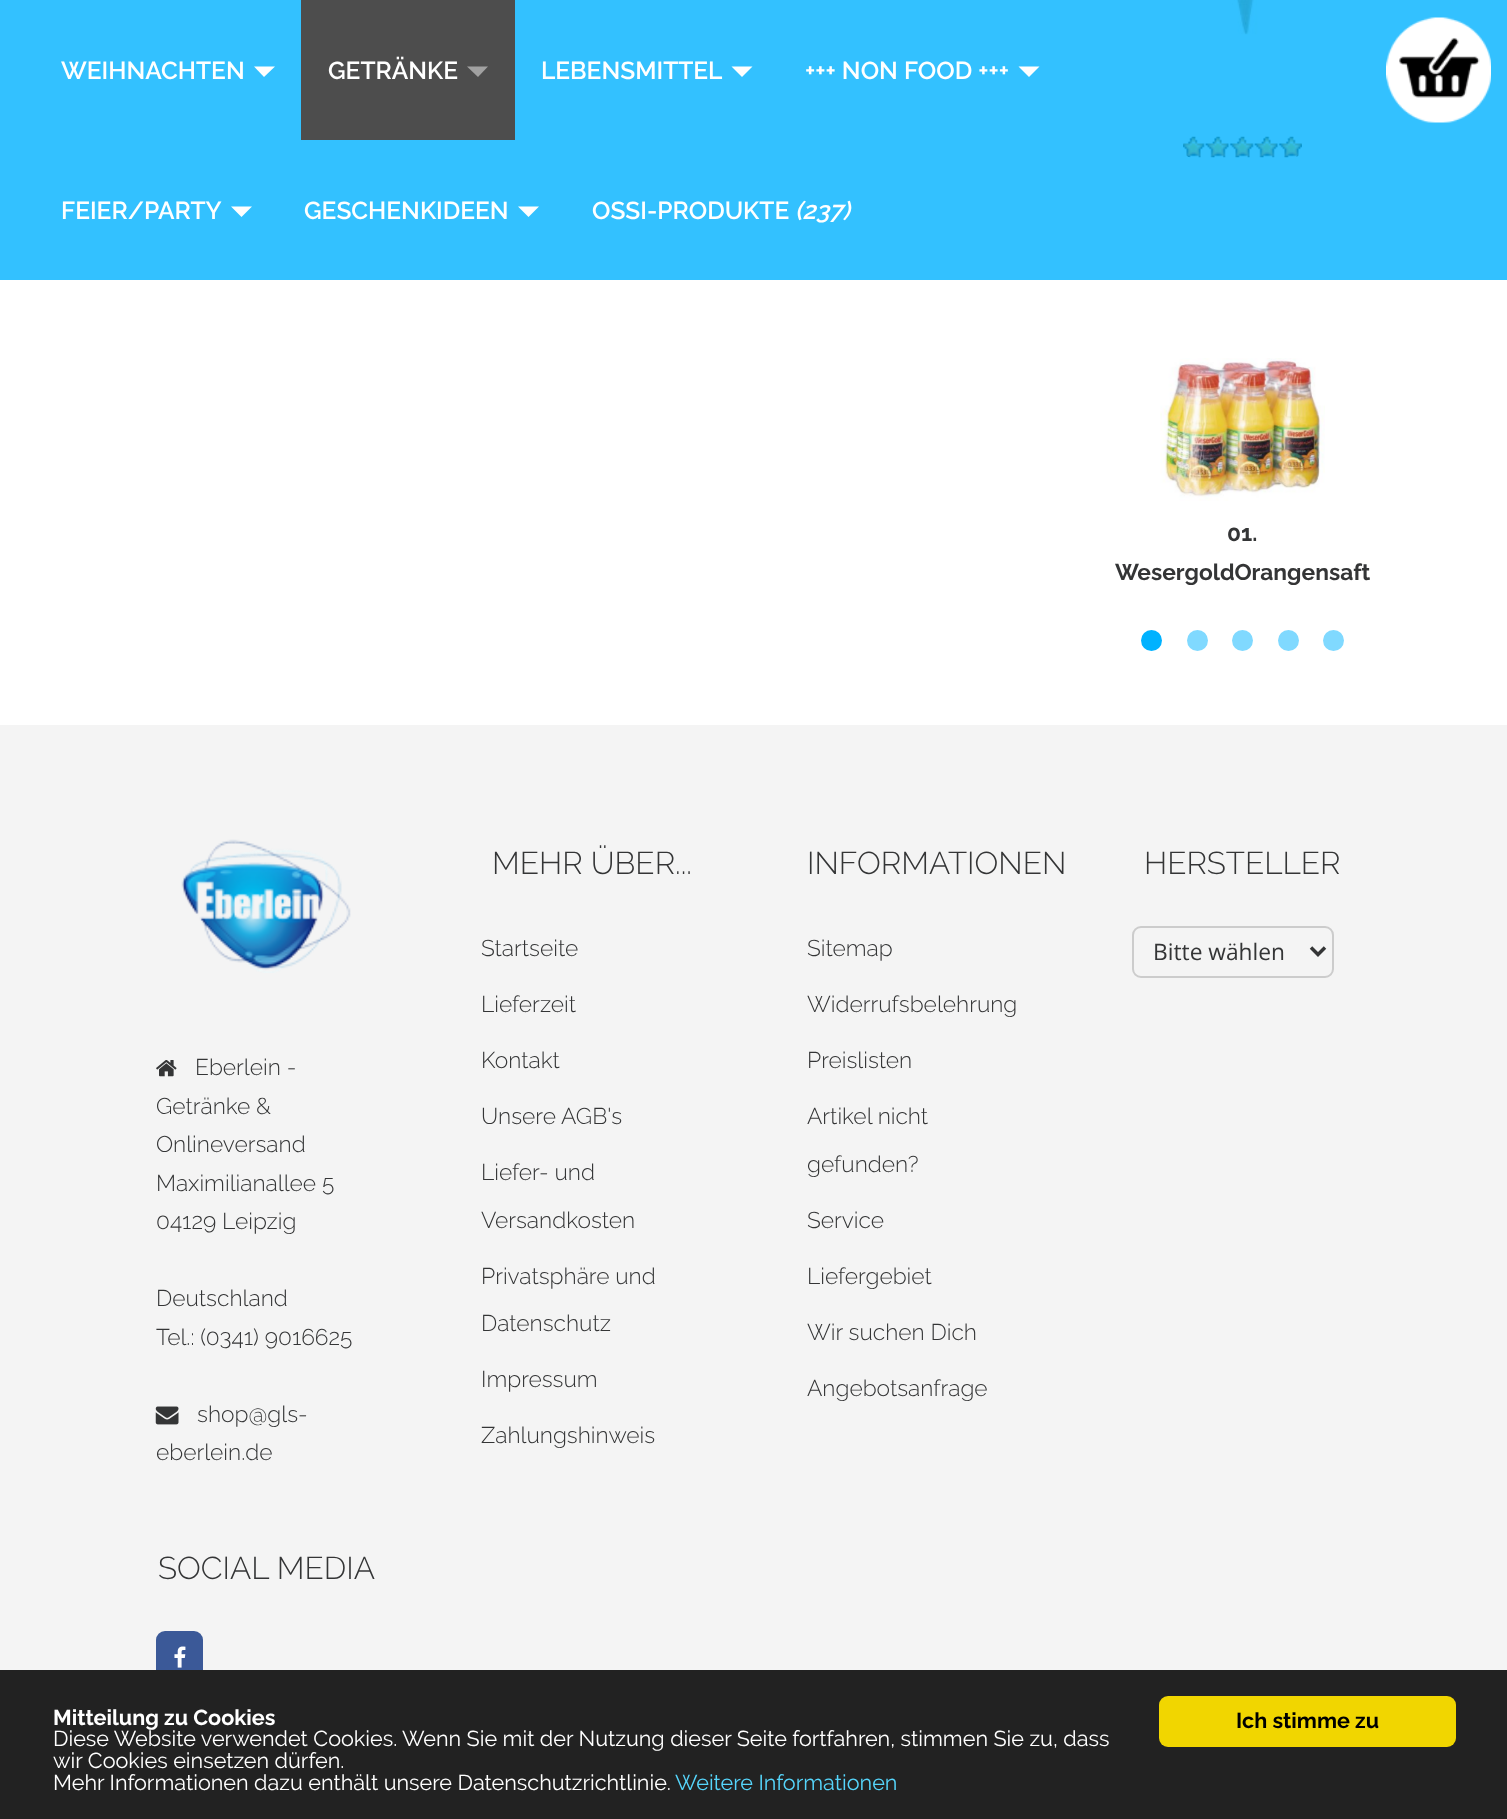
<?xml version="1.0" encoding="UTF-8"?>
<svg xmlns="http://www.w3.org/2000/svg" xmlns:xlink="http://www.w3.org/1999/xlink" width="1507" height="1819">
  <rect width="100%" height="100%" fill="#ffffff" />
  <image x="1232" y="0" width="26" height="35" xlink:href="image2.png" />
  <image x="1183" y="136" width="119" height="22" xlink:href="image3.png" />
  <rect width="1507" height="280" fill="#00b2ff" fill-opacity="0.8" />
  <path d="M 254 66.5 h 21 l -11 10.5 z" fill="#ffffff" />
  <rect x="301" width="214" height="140" fill="#4d4d4d" />
  <path d="M 467 66.5 h 21 l -10 10.5 z" fill="#a1a1a1" />
  <path d="M 731.5 66.5 h 21 l -10.5 10.5 z" fill="#ffffff" />
  <path d="M 1018.5 66.5 h 21 l -10.5 10.5 z" fill="#ffffff" />
  <path d="M 231 206.5 h 21 l -10.5 10.5 z" fill="#ffffff" />
  <path d="M 518 206.5 h 21 l -10.5 10.5 z" fill="#ffffff" />
  <image x="1386" y="17" width="105" height="106" xlink:href="image1.png" />
  <image x="1160" y="358" width="165" height="143" xlink:href="image4.png" />
  <circle cx="1151.5" cy="640.5" r="10.5" fill="#00b2ff" />
  <circle cx="1197.5" cy="640.5" r="10.5" fill="#80d9ff" />
  <circle cx="1242.5" cy="640.5" r="10.5" fill="#80d9ff" />
  <circle cx="1288.5" cy="640.5" r="10.5" fill="#80d9ff" />
  <circle cx="1333.5" cy="640.5" r="10.5" fill="#80d9ff" />
  <rect y="725" width="1507" height="945" fill="#f4f4f4" />
  <rect x="1133" y="927" width="200" height="50" rx="8" fill="none" stroke="#cccccc" stroke-width="2" />
  <path d="M 1311 947.5 l 7 7 l 7 -7" fill="none" stroke="#343536" stroke-width="3.5" />
  <image x="181" y="839" width="170" height="134" xlink:href="image5.png" />
  <image x="156" y="1060" width="21" height="17" xlink:href="image6.png" />
  <image x="155" y="1406" width="24" height="19" xlink:href="image7.png" />
  <rect x="156" y="1631" width="47" height="54" rx="9" fill="#3b5998" />
  <image x="174" y="1646" width="12" height="22" xlink:href="image8.png" />
  <rect y="1670" width="1507" height="149" fill="#222222" />
  <rect x="1159" y="1696" width="297" height="51" rx="9" fill="#f1d600" />
  <text x="61" y="79" style="font-family: Raleway; font-size: 24.5px; font-weight: 600; fill: #ffffff">WEIHNACHTEN</text>
  <text x="328" y="79" style="font-family: Raleway; font-size: 24.5px; font-weight: 600; fill: #ffffff">GETRÄNKE</text>
  <text x="541" y="79" style="font-family: Raleway; font-size: 24.5px; font-weight: 600; fill: #ffffff">LEBENSMITTEL</text>
  <text x="805" y="79" style="font-family: Raleway; font-size: 24.5px; font-weight: 600; fill: #ffffff">+++ NON FOOD +++</text>
  <text x="61" y="219" style="font-family: Raleway; font-size: 24.5px; font-weight: 600; fill: #ffffff">FEIER/PARTY</text>
  <text x="304" y="219" style="font-family: Raleway; font-size: 24.5px; font-weight: 600; fill: #ffffff">GESCHENKIDEEN</text>
  <text x="592" y="219" style="font-family: Raleway; font-size: 24.5px; font-weight: 600; fill: #ffffff">OSSI-PRODUKTE</text>
  <text x="795" y="219" style="font-family: Raleway; font-size: 24.5px; font-weight: 600; font-style: italic; fill: #ffffff">(237)</text>
  <text x="1227" y="541" style="font-family: Raleway; font-size: 22.75px; font-weight: bold; fill: #343536">01.</text>
  <text x="1115" y="580" style="font-family: Raleway; font-size: 22.75px; font-weight: bold; fill: #343536">WesergoldOrangensaft</text>
  <text x="492" y="874" style="font-family: Raleway; font-size: 31.5px; font-weight: 300; fill: #343536">MEHR ÜBER...</text>
  <text x="481" y="956" style="font-family: Raleway; font-size: 22.75px; font-weight: 300; fill: #343536">Startseite</text>
  <text x="481" y="1012" style="font-family: Raleway; font-size: 22.75px; font-weight: 300; fill: #343536">Lieferzeit</text>
  <text x="481" y="1068" style="font-family: Raleway; font-size: 22.75px; font-weight: 300; fill: #343536">Kontakt</text>
  <text x="481" y="1124" style="font-family: Raleway; font-size: 22.75px; font-weight: 300; fill: #343536">Unsere AGB's</text>
  <text x="481" y="1180" style="font-family: Raleway; font-size: 22.75px; font-weight: 300; fill: #343536">Liefer- und</text>
  <text x="481" y="1228" style="font-family: Raleway; font-size: 22.75px; font-weight: 300; fill: #343536">Versandkosten</text>
  <text x="481" y="1284" style="font-family: Raleway; font-size: 22.75px; font-weight: 300; fill: #343536">Privatsphäre und</text>
  <text x="481" y="1331" style="font-family: Raleway; font-size: 22.75px; font-weight: 300; fill: #343536">Datenschutz</text>
  <text x="481" y="1387" style="font-family: Raleway; font-size: 22.75px; font-weight: 300; fill: #343536">Impressum</text>
  <text x="481" y="1443" style="font-family: Raleway; font-size: 22.75px; font-weight: 300; fill: #343536">Zahlungshinweis</text>
  <text x="807" y="874" style="font-family: Raleway; font-size: 31.5px; font-weight: 300; fill: #343536">INFORMATIONEN</text>
  <text x="807" y="956" style="font-family: Raleway; font-size: 22.75px; font-weight: 300; fill: #343536">Sitemap</text>
  <text x="807" y="1012" style="font-family: Raleway; font-size: 22.75px; font-weight: 300; fill: #343536">Widerrufsbelehrung</text>
  <text x="807" y="1068" style="font-family: Raleway; font-size: 22.75px; font-weight: 300; fill: #343536">Preislisten</text>
  <text x="807" y="1124" style="font-family: Raleway; font-size: 22.75px; font-weight: 300; fill: #343536">Artikel nicht</text>
  <text x="807" y="1172" style="font-family: Raleway; font-size: 22.75px; font-weight: 300; fill: #343536">gefunden?</text>
  <text x="807" y="1228" style="font-family: Raleway; font-size: 22.75px; font-weight: 300; fill: #343536">Service</text>
  <text x="807" y="1284" style="font-family: Raleway; font-size: 22.75px; font-weight: 300; fill: #343536">Liefergebiet</text>
  <text x="807" y="1340" style="font-family: Raleway; font-size: 22.75px; font-weight: 300; fill: #343536">Wir suchen Dich</text>
  <text x="807" y="1396" style="font-family: Raleway; font-size: 22.75px; font-weight: 300; fill: #343536">Angebotsanfrage</text>
  <text x="1144" y="874" style="font-family: Raleway; font-size: 31.5px; font-weight: 300; fill: #343536">HERSTELLER</text>
  <text x="1153" y="960" style="font-family: Open Sans; font-size: 22.75px; fill: #343536">Bitte wählen</text>
  <text x="195" y="1075" style="font-family: Raleway; font-size: 22.75px; font-weight: 300; fill: #343536">Eberlein -</text>
  <text x="156" y="1114" style="font-family: Raleway; font-size: 22.75px; font-weight: 300; fill: #343536">Getränke &amp;</text>
  <text x="156" y="1152" style="font-family: Raleway; font-size: 22.75px; font-weight: 300; fill: #343536">Onlineversand</text>
  <text x="156" y="1191" style="font-family: Raleway; font-size: 22.75px; font-weight: 300; fill: #343536">Maximilianallee 5</text>
  <text x="156" y="1229" style="font-family: Raleway; font-size: 22.75px; font-weight: 300; fill: #343536">04129 Leipzig</text>
  <text x="156" y="1306" style="font-family: Raleway; font-size: 22.75px; font-weight: 300; fill: #343536">Deutschland</text>
  <text x="156" y="1345" style="font-family: Raleway; font-size: 22.75px; font-weight: 300; fill: #343536">Tel.: (0341) 9016625</text>
  <text x="197" y="1422" style="font-family: Raleway; font-size: 22.75px; font-weight: 300; fill: #343536">shop@gls-</text>
  <text x="156" y="1460" style="font-family: Raleway; font-size: 22.75px; font-weight: 300; fill: #343536">eberlein.de</text>
  <text x="158" y="1579" style="font-family: Raleway; font-size: 31.5px; font-weight: 300; fill: #343536">SOCIAL MEDIA</text>
  <text x="53" y="1725" style="font-family: Raleway; font-size: 21.6px; font-weight: bold; fill: #ffffff">Mitteilung zu Cookies</text>
  <text x="53" y="1746" style="font-family: Raleway; font-size: 21.6px; fill: #ffffff">Diese Website verwendet Cookies. Wenn Sie mit der Nutzung dieser Seite fortfahren, stimmen Sie zu, dass</text>
  <text x="53" y="1768" style="font-family: Raleway; font-size: 21.6px; fill: #ffffff">wir Cookies einsetzen dürfen.</text>
  <text x="53" y="1790" style="font-family: Raleway; font-size: 21.6px; fill: #ffffff">Mehr Informationen dazu enthält unsere Datenschutzrichtlinie.</text>
  <text x="675" y="1790" style="font-family: Raleway; font-size: 21.6px; fill: #56d5fb">Weitere Informationen</text>
  <text x="1236" y="1728" style="font-family: Raleway; font-size: 21.6px; font-weight: bold; fill: #000000">Ich stimme zu</text>
</svg>
